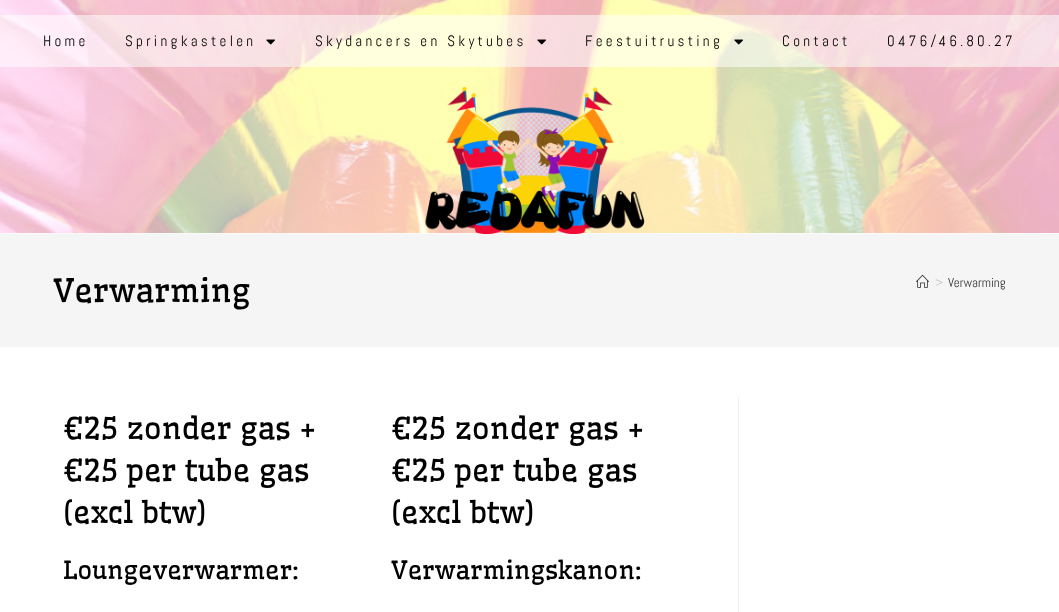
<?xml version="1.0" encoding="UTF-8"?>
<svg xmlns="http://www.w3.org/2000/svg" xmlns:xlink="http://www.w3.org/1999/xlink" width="1059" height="612">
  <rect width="100%" height="100%" fill="#ffffff" />
  <image x="0" y="0" width="1059" height="233" xlink:href="image1.png" />
  <rect y="233" width="1059" height="1" fill="#fbfbfb" />
  <rect y="15" width="1059" height="52" fill="#ffffff" fill-opacity="0.55" />
  <image x="266" y="39" width="9" height="6" xlink:href="image2.png" />
  <image x="537" y="39" width="9" height="6" xlink:href="image3.png" />
  <image x="734" y="39" width="9" height="6" xlink:href="image4.png" />
  <image x="425" y="87" width="220" height="147" xlink:href="image5.png" />
  <rect y="234" width="1059" height="113" fill="#f5f5f5" />
  <image x="916" y="274" width="13" height="14" xlink:href="image6.png" />
  <rect x="738" y="397" width="1" height="215" fill="#f1f1f1" />
  <text x="43" y="46" style="font-family: Abel; font-size: 15px; letter-spacing: 3.3px; fill: #000000">Home</text>
  <text x="125" y="46" style="font-family: Abel; font-size: 15px; letter-spacing: 3.3px; fill: #000000">Springkastelen</text>
  <text x="315" y="46" style="font-family: Abel; font-size: 15px; letter-spacing: 3.3px; fill: #000000">Skydancers en Skytubes</text>
  <text x="585" y="46" style="font-family: Abel; font-size: 15px; letter-spacing: 3.3px; fill: #000000">Feestuitrusting</text>
  <text x="782" y="46" style="font-family: Abel; font-size: 15px; letter-spacing: 3.3px; fill: #000000">Contact</text>
  <text x="887" y="46" style="font-family: Abel; font-size: 15px; letter-spacing: 3.3px; fill: #000000">0476/46.80.27</text>
  <text x="53" y="302" style="font-family: Wellfleet; font-size: 32px; fill: #000000">Verwarming</text>
  <text x="935" y="287" style="font-family: Abel; font-size: 13px; fill: #c6c6c6">&gt;</text>
  <text x="948" y="287" style="font-family: Abel; font-size: 13px; fill: #333333">Verwarming</text>
  <text x="63" y="439" style="font-family: Wellfleet; font-size: 30px; fill: #000000">€25 zonder gas +</text>
  <text x="63" y="481" style="font-family: Wellfleet; font-size: 30px; fill: #000000">€25 per tube gas</text>
  <text x="63" y="523" style="font-family: Wellfleet; font-size: 30px; fill: #000000">(excl btw)</text>
  <text x="63" y="579" style="font-family: Wellfleet; font-size: 25px; fill: #000000">Loungeverwarmer:</text>
  <text x="391" y="439" style="font-family: Wellfleet; font-size: 30px; fill: #000000">€25 zonder gas +</text>
  <text x="391" y="481" style="font-family: Wellfleet; font-size: 30px; fill: #000000">€25 per tube gas</text>
  <text x="391" y="523" style="font-family: Wellfleet; font-size: 30px; fill: #000000">(excl btw)</text>
  <text x="391" y="579" style="font-family: Wellfleet; font-size: 25px; fill: #000000">Verwarmingskanon:</text>
</svg>
